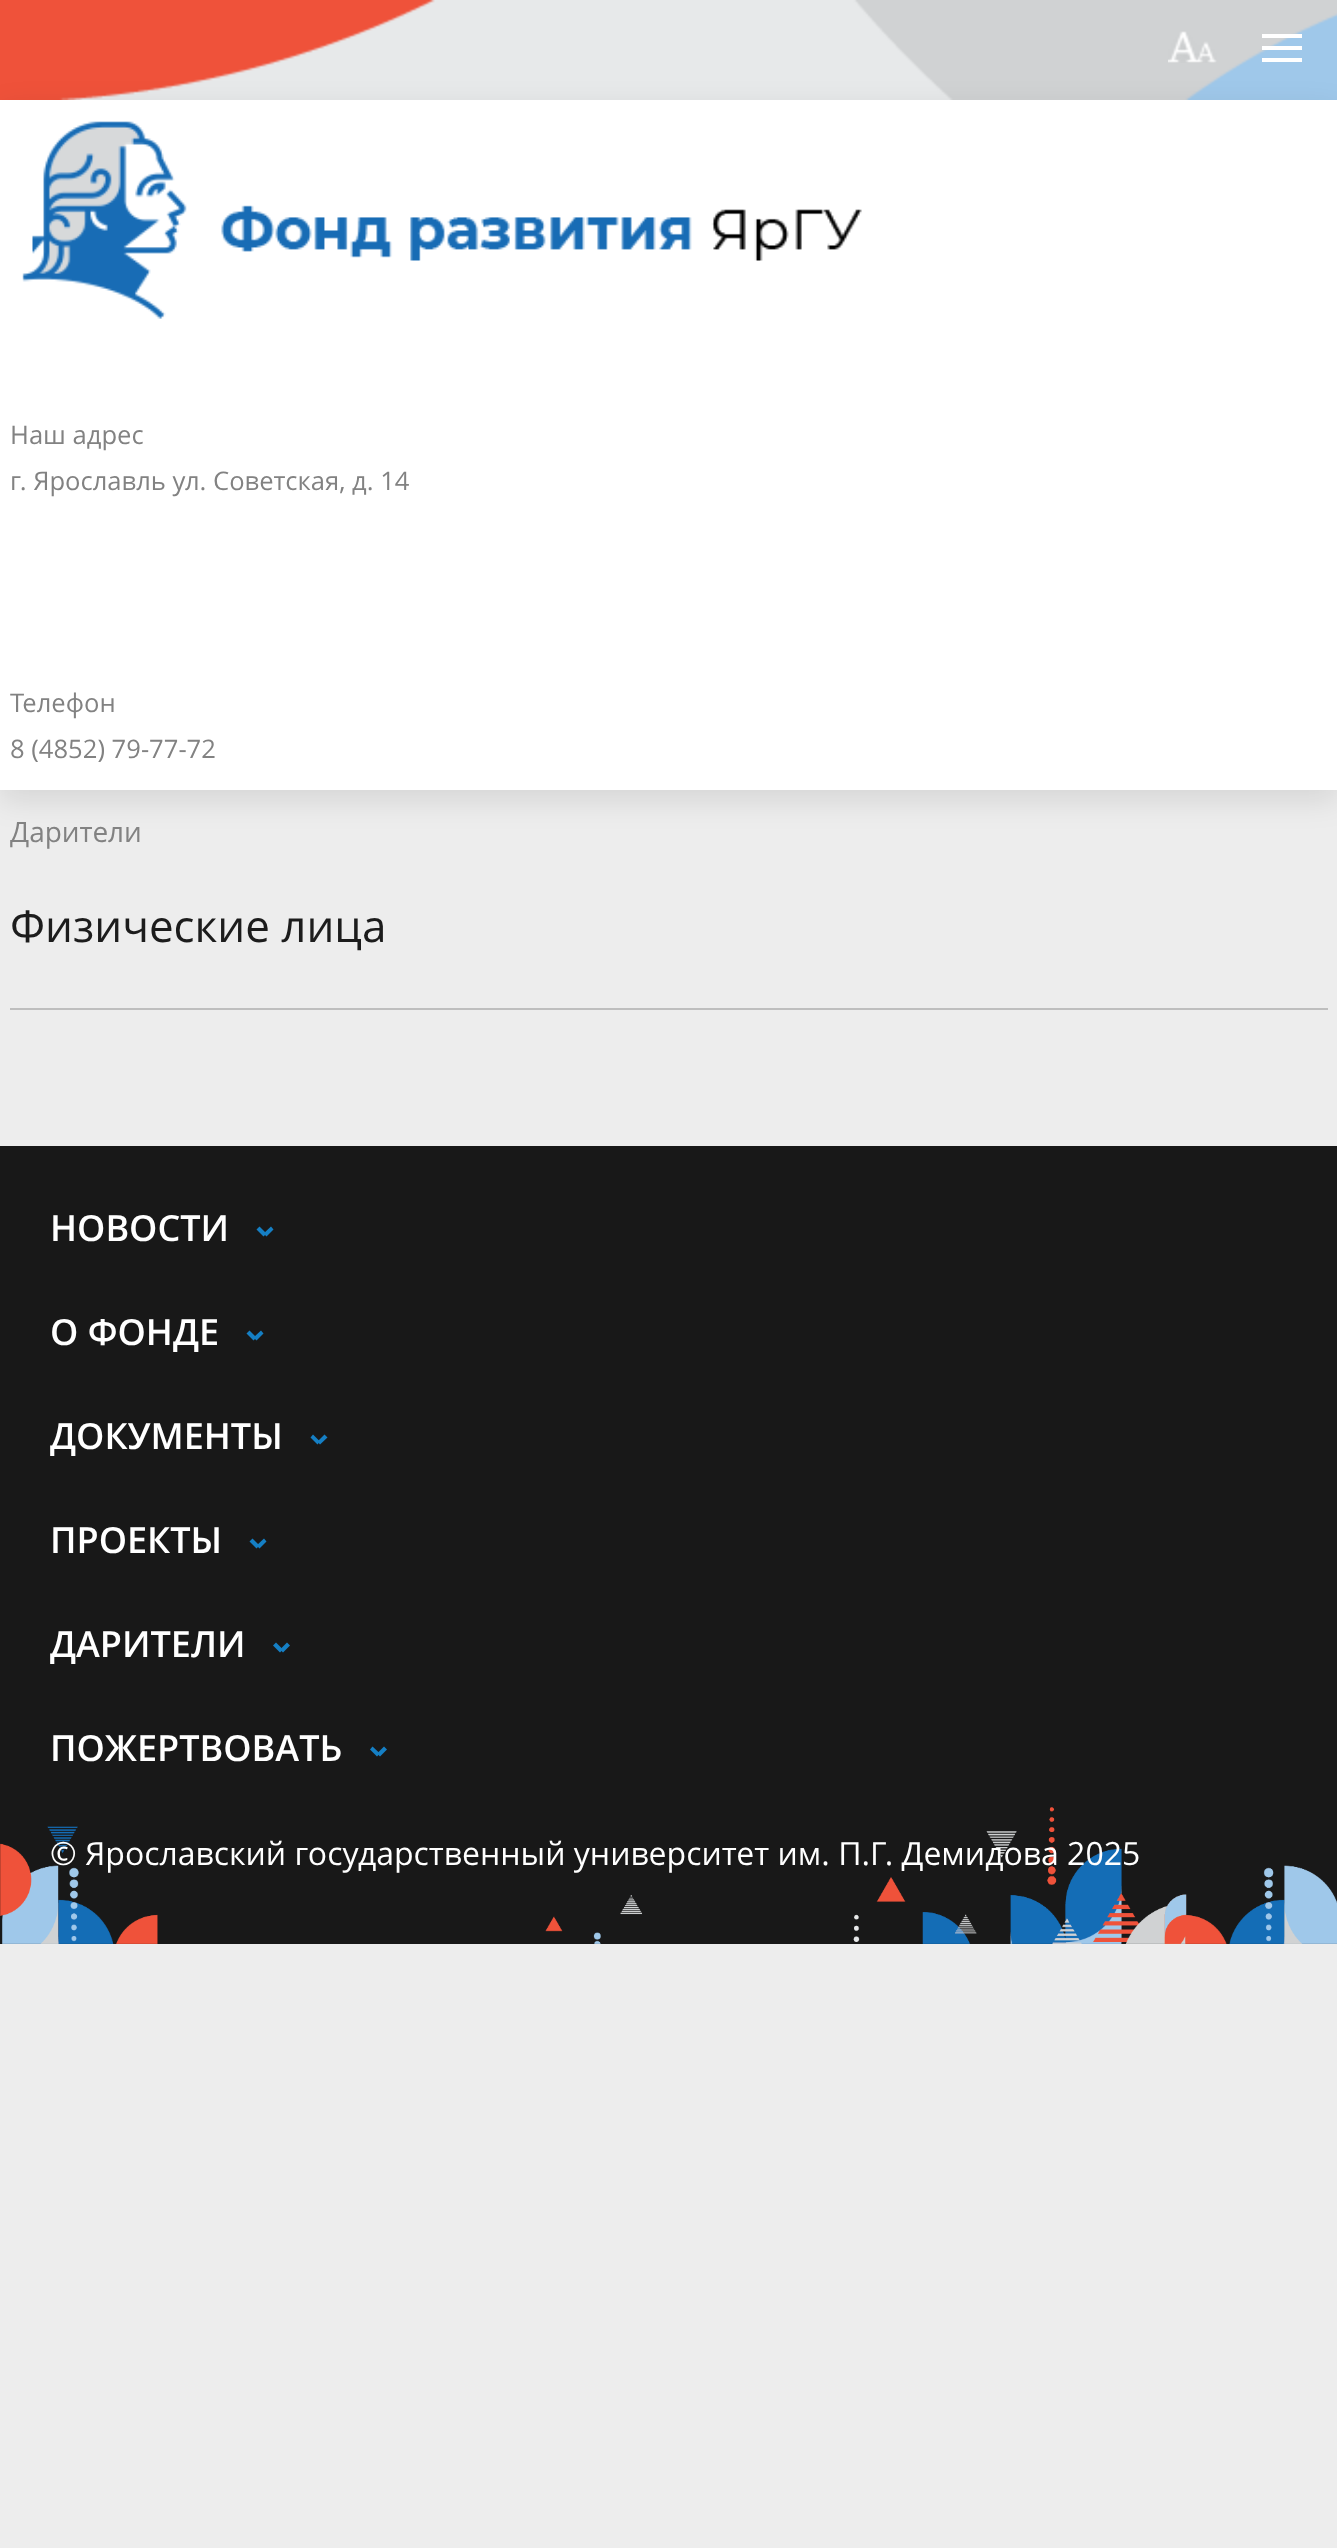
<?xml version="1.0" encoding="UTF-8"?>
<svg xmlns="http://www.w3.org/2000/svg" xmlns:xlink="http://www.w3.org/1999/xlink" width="1337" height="2548">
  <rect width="100%" height="100%" fill="#ededed" />
  <image x="0" y="0" width="1337" height="100" xlink:href="image1.png" />
  <rect x="1262" y="46" width="40" height="4" fill="#ffffff" />
  <rect x="1262" y="34" width="40" height="4" fill="#ffffff" />
  <rect x="1262" y="58" width="40" height="4" fill="#ffffff" />
  <image x="1168" y="31" width="49" height="32" xlink:href="image2.png" />
  <rect y="110" width="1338" height="690" fill="#000000" fill-opacity="0.1" filter="blur(15px)" />
  <rect y="100" width="1337" height="690" fill="#ffffff" />
  <image x="22" y="121" width="840" height="198" xlink:href="image3.png" />
  <rect x="10" y="1008" width="1318" height="2" fill="#bebebe" />
  <rect y="1146" width="1337" height="798" fill="#181818" />
  <image x="0" y="1807" width="1337" height="137" xlink:href="image4.png" />
  <path d="M 263.5 1233.5 l 7.5 -7 l 2.5 3 l -7 7 z" fill="#157fc4" />
  <path d="M 256.5 1229.5 l 3 -3 l 7 7 l -3 3 z" fill="#157fc4" />
  <path d="M 253.5 1337.5 l 7.5 -7 l 2.5 3 l -7 7 z" fill="#157fc4" />
  <path d="M 246.5 1333.5 l 3 -3 l 7 7 l -3 3 z" fill="#157fc4" />
  <path d="M 317.5 1441.5 l 7 -7 l 3 3 l -7.5 7 z" fill="#157fc4" />
  <path d="M 310.5 1437.5 l 2.5 -3 l 7 7 l -2.5 3 z" fill="#157fc4" />
  <path d="M 256.5 1545.5 l 7.5 -7 l 2.5 3 l -7 7 z" fill="#157fc4" />
  <path d="M 249.5 1541.5 l 3 -3 l 7 7 l -3 3 z" fill="#157fc4" />
  <path d="M 280 1649.5 l 7 -7 l 3 3 l -7 7 z" fill="#157fc4" />
  <path d="M 273 1645.5 l 3 -3 l 7 7 l -3 3 z" fill="#157fc4" />
  <path d="M 377 1753.5 l 7 -7 l 3 3 l -7 7 z" fill="#157fc4" />
  <path d="M 370 1749.5 l 2.5 -3 l 7.5 7 l -3 3 z" fill="#157fc4" />
  <text x="10" y="444" style="font-family: Open Sans; font-size: 25.6px; fill: #828282">Наш адрес</text>
  <text x="10" y="490" style="font-family: Open Sans; font-size: 25.6px; fill: #828282">г. Ярославль ул. Советская, д. 14</text>
  <text x="10" y="712" style="font-family: Open Sans; font-size: 25.6px; fill: #828282">Телефон</text>
  <text x="10" y="758" style="font-family: Open Sans; font-size: 25.6px; fill: #828282">8 (4852) 79-77-72</text>
  <text x="10" y="842" style="font-family: Open Sans; font-size: 28px; fill: #828282">Дарители</text>
  <text x="10" y="942" style="font-family: Open Sans; font-size: 44px; fill: #1c1c1c">Физические лица</text>
  <text x="50" y="1241" style="font-family: Open Sans; font-size: 36px; font-weight: 600; fill: #ffffff">НОВОСТИ</text>
  <text x="50" y="1345" style="font-family: Open Sans; font-size: 36px; font-weight: 600; fill: #ffffff">О ФОНДЕ</text>
  <text x="50" y="1449" style="font-family: Open Sans; font-size: 36px; font-weight: 600; fill: #ffffff">ДОКУМЕНТЫ</text>
  <text x="50" y="1553" style="font-family: Open Sans; font-size: 36px; font-weight: 600; fill: #ffffff">ПРОЕКТЫ</text>
  <text x="50" y="1657" style="font-family: Open Sans; font-size: 36px; font-weight: 600; fill: #ffffff">ДАРИТЕЛИ</text>
  <text x="50" y="1761" style="font-family: Open Sans; font-size: 36px; font-weight: 600; fill: #ffffff">ПОЖЕРТВОВАТЬ</text>
  <text x="50" y="1865" style="font-family: Open Sans; font-size: 32px; fill: #ffffff">© Ярославский государственный университет им. П.Г. Демидова 2025</text>
</svg>
